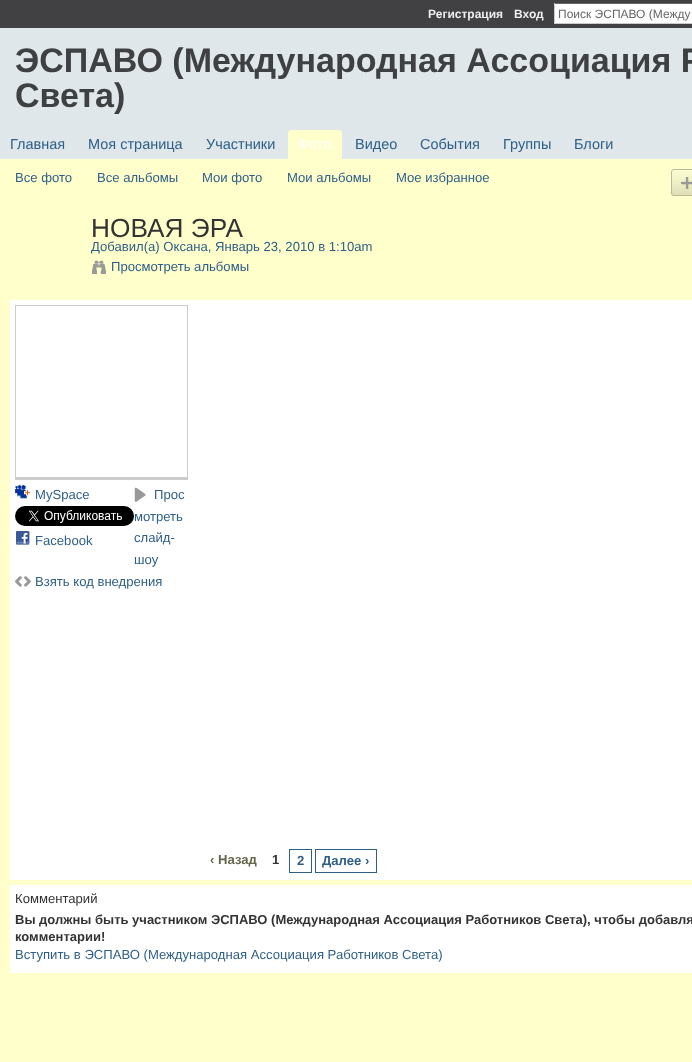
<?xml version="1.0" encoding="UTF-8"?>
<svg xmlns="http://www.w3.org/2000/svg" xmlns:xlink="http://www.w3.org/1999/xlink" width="692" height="1062">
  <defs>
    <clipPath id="clip1"><rect y="28" width="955" height="86" /></clipPath>
  </defs>
  <rect width="100%" height="100%" fill="#dfe7ea" />
  <rect width="692" height="28" fill="#414143" />
  <rect x="555" y="4" width="137" height="19" fill="#ffffff" />
  <rect x="554" y="3" width="138" height="1" fill="#666666" />
  <rect x="554" y="23" width="138" height="1" fill="#cccccc" />
  <rect x="554" y="3" width="1" height="21" fill="#cccccc" />
  <path d="M 291 130 h 48 c 1.5 0 3 1.5 3 3 v 26 h -54 v -26 c 0 -1.5 1.5 -3 3 -3 z" fill="#ffffcc" />
  <rect y="159" width="692" height="903" fill="#ffffcc" />
  <image x="671" y="170" width="21" height="26" xlink:href="image1.png" />
  <rect x="671.5" y="169.5" width="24" height="26" rx="2.5" fill="none" stroke="#bbbb99" />
  <image x="681" y="177" width="11" height="12" xlink:href="image2.png" />
  <image x="92" y="260" width="14" height="14" xlink:href="image3.png" />
  <rect x="10" y="300" width="682" height="580" fill="#ffffff" />
  <rect x="15" y="305" width="173" height="1" fill="#cccccc" />
  <rect x="187" y="305" width="1" height="175" fill="#cccccc" />
  <rect x="15" y="477" width="173" height="3" fill="#cccccc" />
  <rect x="15" y="305" width="1" height="175" fill="#cccccc" />
  <image x="15" y="485" width="15" height="14" xlink:href="image4.png" />
  <image x="15" y="506" width="119" height="20" xlink:href="image5.png" />
  <image x="16" y="531" width="14" height="14" xlink:href="image6.png" />
  <image x="134" y="487" width="12" height="15" xlink:href="image7.png" />
  <image x="15" y="576" width="16" height="11" xlink:href="image8.png" />
  <rect x="289.5" y="849.5" width="22" height="23" fill="none" stroke="#2e5f87" />
  <rect x="315.5" y="849.5" width="61" height="23" fill="none" stroke="#2e5f87" />
  <rect x="10" y="885" width="682" height="88" fill="#ffffff" />
  <text x="428" y="18" style="font-family: Liberation Sans; font-size: 12px; font-weight: bold; fill: #eeeeee">Регистрация</text>
  <text x="514" y="18" style="font-family: Liberation Sans; font-size: 12px; font-weight: bold; fill: #eeeeee">Вход</text>
  <text x="558" y="18" style="font-family: Liberation Sans; font-size: 12px; fill: #666666">Поиск ЭСПАВО (Между</text>
  <text x="15" y="72" style="font-family: Liberation Sans; font-size: 34px; font-weight: bold; fill: #3f4042">ЭСПАВО (Международная Ассоциация Р</text>
  <g clip-path="url(#clip1)">
    <text x="15" y="107" style="font-family: Liberation Sans; font-size: 34px; font-weight: bold; fill: #3f4042">Света)</text>
  </g>
  <text x="10" y="149" style="font-family: Liberation Sans; font-size: 14.5px; fill: #2e5f87">Главная</text>
  <text x="88" y="149" style="font-family: Liberation Sans; font-size: 14.5px; fill: #2e5f87">Моя страница</text>
  <text x="206" y="149" style="font-family: Liberation Sans; font-size: 14.5px; fill: #2e5f87">Участники</text>
  <text x="298" y="149" style="font-family: Liberation Sans; font-size: 14.5px; fill: #ffffff">Фото</text>
  <text x="355" y="149" style="font-family: Liberation Sans; font-size: 14.5px; fill: #2e5f87">Видео</text>
  <text x="420" y="149" style="font-family: Liberation Sans; font-size: 14.5px; fill: #2e5f87">События</text>
  <text x="503" y="149" style="font-family: Liberation Sans; font-size: 14.5px; fill: #2e5f87">Группы</text>
  <text x="574" y="149" style="font-family: Liberation Sans; font-size: 14.5px; fill: #2e5f87">Блоги</text>
  <text x="15" y="182" style="font-family: Liberation Sans; font-size: 13.1px; fill: #2e5f87">Все фото</text>
  <text x="97" y="182" style="font-family: Liberation Sans; font-size: 13.1px; fill: #2e5f87">Все альбомы</text>
  <text x="202" y="182" style="font-family: Liberation Sans; font-size: 13.1px; fill: #2e5f87">Мои фото</text>
  <text x="287" y="182" style="font-family: Liberation Sans; font-size: 13.1px; fill: #2e5f87">Мои альбомы</text>
  <text x="396" y="182" style="font-family: Liberation Sans; font-size: 13.1px; fill: #2e5f87">Мое избранное</text>
  <text x="91" y="237" style="font-family: Liberation Sans; font-size: 26.25px; fill: #333333">НОВАЯ ЭРА</text>
  <text x="91" y="251" style="font-family: Liberation Sans; font-size: 13.1px; fill: #2e5f87">Добавил(а) Оксана, Январь 23, 2010 в 1:10am</text>
  <text x="111" y="271" style="font-family: Liberation Sans; font-size: 13.1px; fill: #2e5f87">Просмотреть альбомы</text>
  <text x="35" y="499" style="font-family: Liberation Sans; font-size: 13.1px; fill: #2e5f87">MySpace</text>
  <text x="35" y="545" style="font-family: Liberation Sans; font-size: 13.1px; fill: #2e5f87">Facebook</text>
  <text x="154" y="499" style="font-family: Liberation Sans; font-size: 13.1px; fill: #2e5f87">Прос</text>
  <text x="134" y="521" style="font-family: Liberation Sans; font-size: 13.1px; fill: #2e5f87">мотреть</text>
  <text x="134" y="542" style="font-family: Liberation Sans; font-size: 13.1px; fill: #2e5f87">слайд-</text>
  <text x="134" y="564" style="font-family: Liberation Sans; font-size: 13.1px; fill: #2e5f87">шоу</text>
  <text x="35" y="586" style="font-family: Liberation Sans; font-size: 13.1px; fill: #2e5f87">Взять код внедрения</text>
  <text x="210" y="864" style="font-family: Liberation Sans; font-size: 13.1px; font-weight: bold; fill: #66664d">‹ Назад</text>
  <text x="272" y="864" style="font-family: Liberation Sans; font-size: 13.1px; font-weight: bold; fill: #333333">1</text>
  <text x="297" y="865" style="font-family: Liberation Sans; font-size: 13.1px; font-weight: bold; fill: #2e5f87">2</text>
  <text x="322" y="865" style="font-family: Liberation Sans; font-size: 13.1px; font-weight: bold; fill: #2e5f87">Далее ›</text>
  <text x="15" y="903" style="font-family: Liberation Sans; font-size: 13.1px; fill: #333333">Комментарий</text>
  <text x="15" y="924" style="font-family: Liberation Sans; font-size: 13px; font-weight: bold; fill: #333333">Вы должны быть участником ЭСПАВО (Международная Ассоциация Работников Света), чтобы добавля</text>
  <text x="15" y="941" style="font-family: Liberation Sans; font-size: 13px; font-weight: bold; fill: #333333">комментарии!</text>
  <text x="15" y="959" style="font-family: Liberation Sans; font-size: 13.1px; fill: #2e5f87">Вступить в ЭСПАВО (Международная Ассоциация Работников Света)</text>
</svg>
